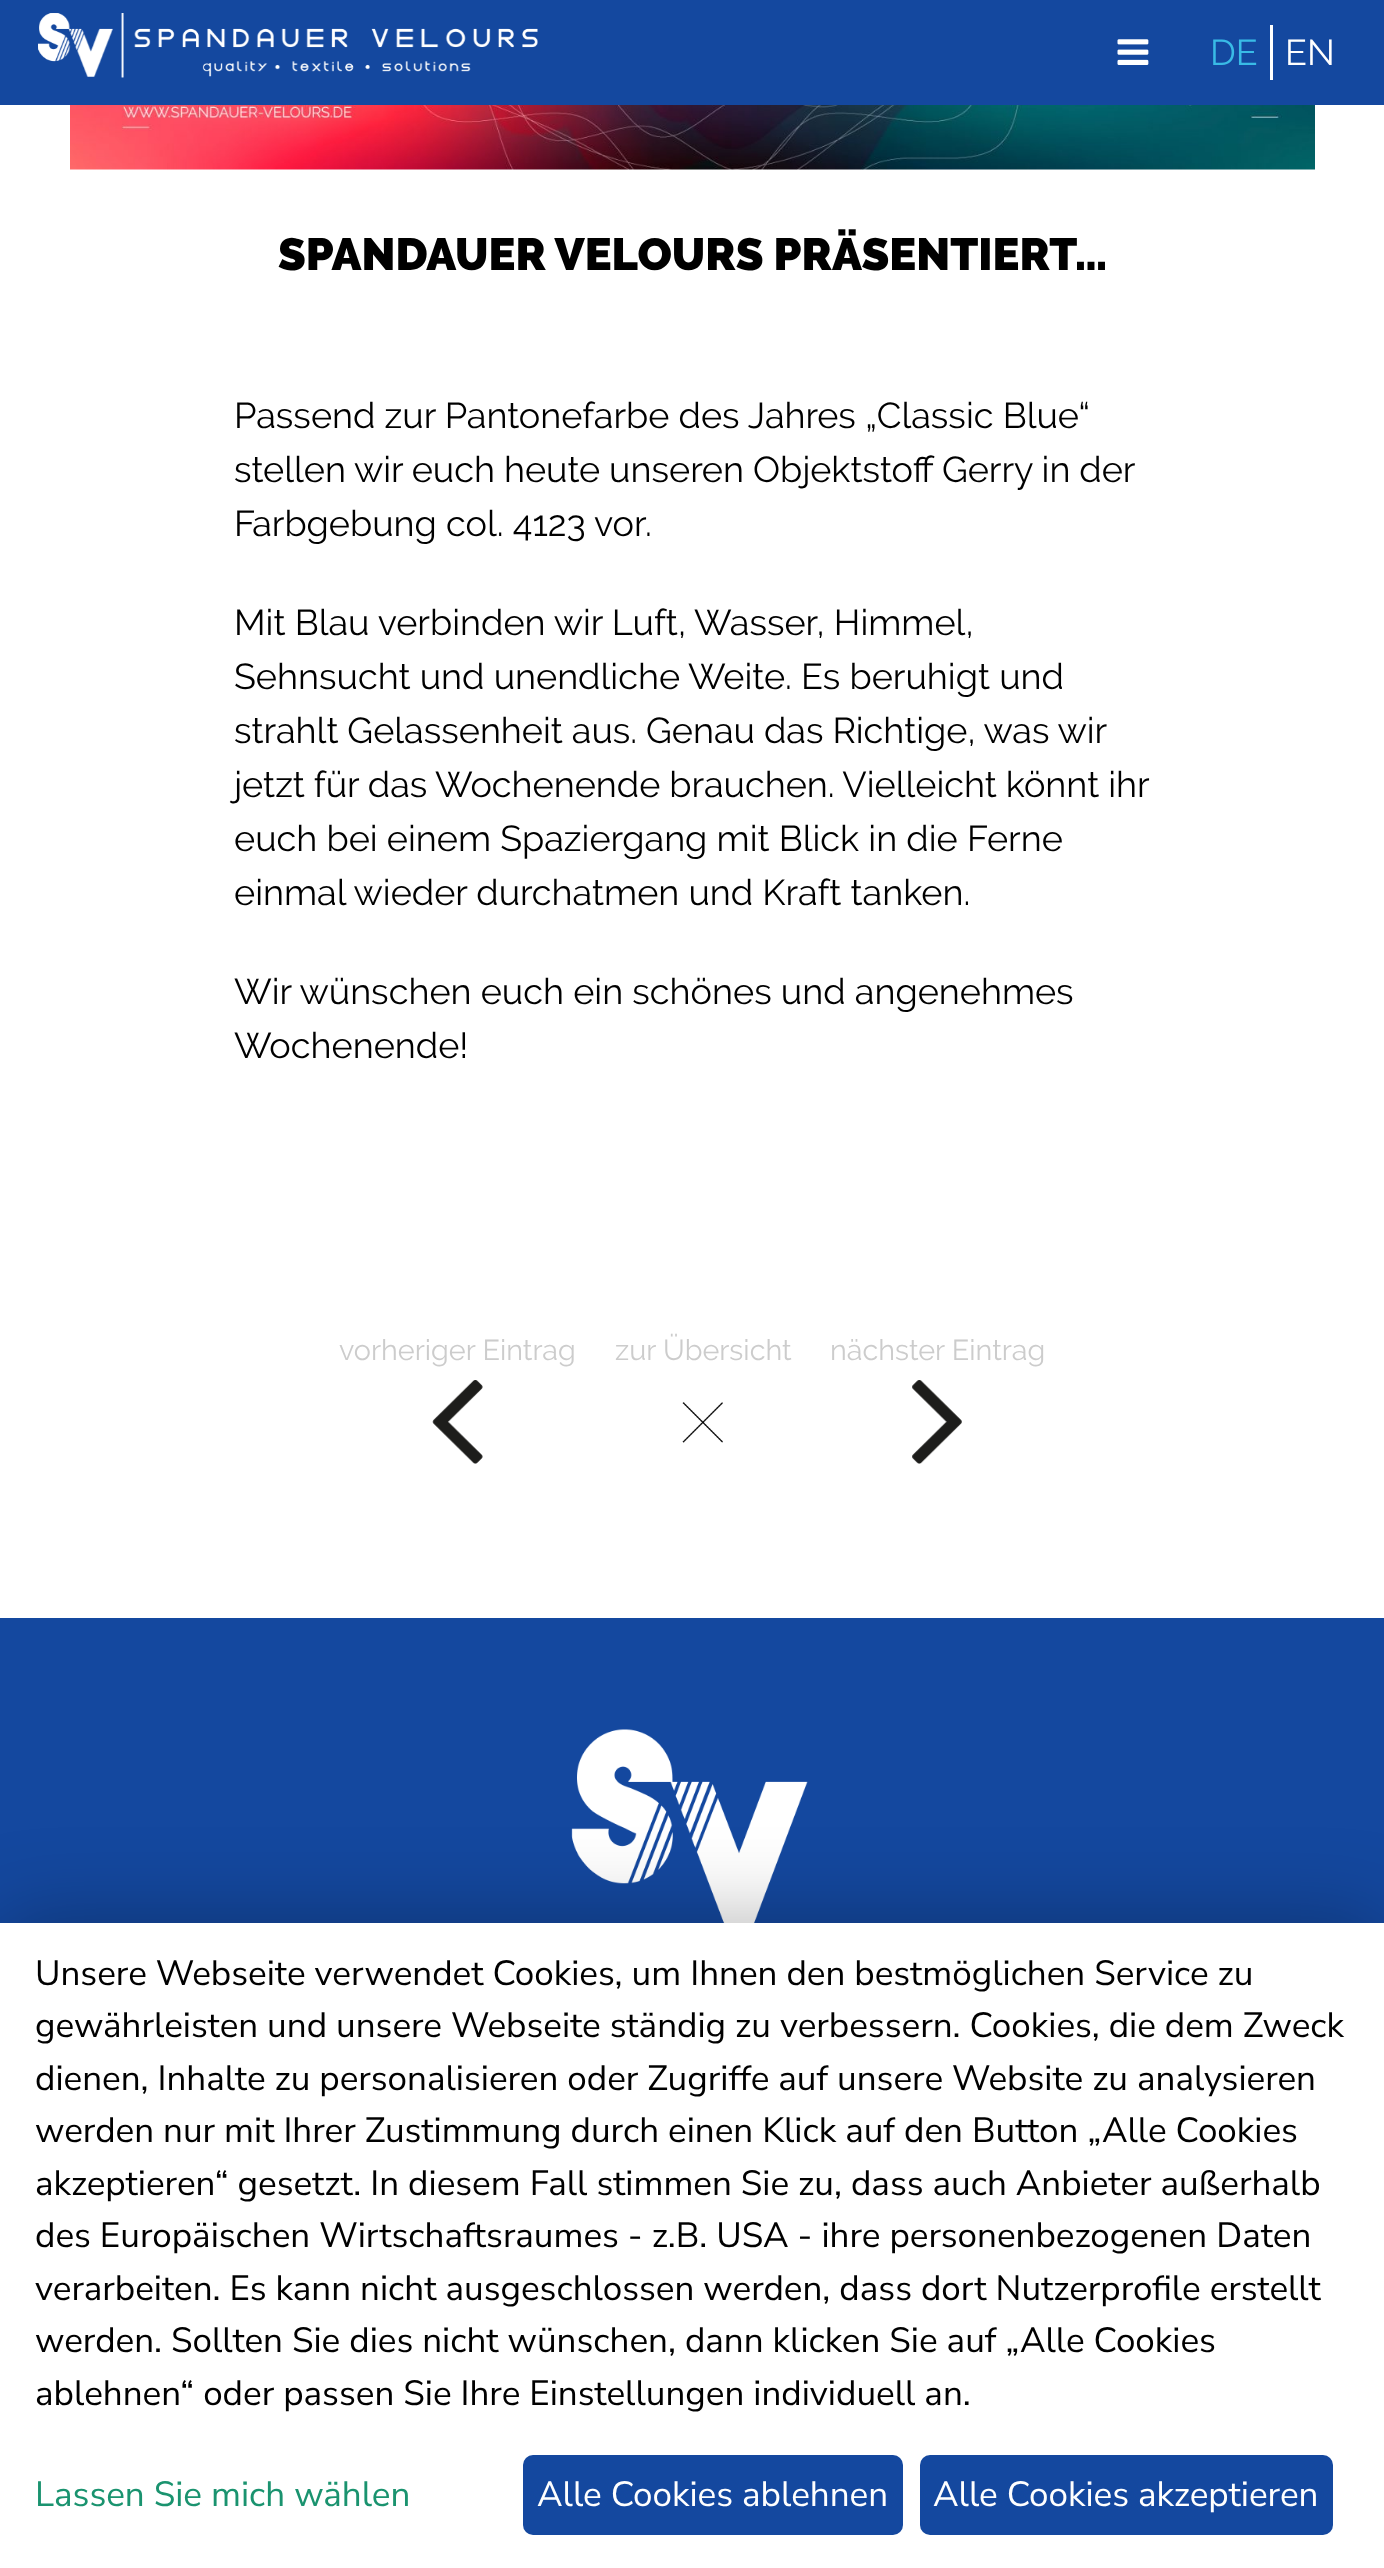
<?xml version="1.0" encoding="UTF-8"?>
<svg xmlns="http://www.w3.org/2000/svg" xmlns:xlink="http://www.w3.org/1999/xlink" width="1384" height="2568">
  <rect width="100%" height="100%" fill="#ffffff" />
  <rect width="1384" height="105" fill="#14489f" />
  <image x="38" y="13" width="500" height="65" xlink:href="image1.png" />
  <image x="1117" y="39" width="32" height="26" xlink:href="image2.png" />
  <rect x="1270" y="25" width="3" height="55" fill="#ffffff" />
  <image x="70" y="105" width="1245" height="65" xlink:href="image3.png" />
  <image x="432" y="1380" width="51" height="84" xlink:href="image4.png" />
  <image x="682" y="1402" width="41" height="41" xlink:href="image5.png" />
  <image x="912" y="1380" width="50" height="84" xlink:href="image6.png" />
  <rect y="1618" width="1384" height="305" fill="#14489f" />
  <image x="571" y="1729" width="237" height="194" xlink:href="image7.png" />
  <rect y="1923" width="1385" height="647" fill="#000000" fill-opacity="0.3" filter="blur(44px)" />
  <rect y="1923" width="1384" height="645" fill="#ffffff" />
  <rect x="523" y="2455" width="380" height="80" rx="10" fill="#14489f" />
  <rect x="920" y="2455" width="413" height="80" rx="10" fill="#14489f" />
  <text x="1210" y="65" style="font-family: Raleway; font-size: 36px; fill: #39bbe6">DE</text>
  <text x="1285" y="65" style="font-family: Raleway; font-size: 36px; fill: #ffffff">EN</text>
  <text x="278" y="270" style="font-family: Raleway; font-size: 45px; font-weight: 900; fill: #000000">SPANDAUER VELOURS PRÄSENTIERT…</text>
  <text x="234" y="428" style="font-family: Raleway; font-size: 36px; fill: #000000">Passend zur Pantonefarbe des Jahres „Classic Blue“</text>
  <text x="234" y="482" word-spacing="-0.25" style="font-family: Raleway; font-size: 36px; fill: #000000">stellen wir euch heute unseren Objektstoff Gerry in der</text>
  <text x="234" y="536" style="font-family: Raleway; font-size: 36px; fill: #000000">Farbgebung col. 4123 vor.</text>
  <text x="234" y="635" style="font-family: Raleway; font-size: 36px; fill: #000000">Mit Blau verbinden wir Luft, Wasser, Himmel,</text>
  <text x="234" y="689" style="font-family: Raleway; font-size: 36px; fill: #000000">Sehnsucht und unendliche Weite. Es beruhigt und</text>
  <text x="234" y="743" word-spacing="-0.25" style="font-family: Raleway; font-size: 36px; fill: #000000">strahlt Gelassenheit aus. Genau das Richtige, was wir</text>
  <text x="234" y="797" word-spacing="-0.25" style="font-family: Raleway; font-size: 36px; fill: #000000">jetzt für das Wochenende brauchen. Vielleicht könnt ihr</text>
  <text x="234" y="851" style="font-family: Raleway; font-size: 36px; fill: #000000">euch bei einem Spaziergang mit Blick in die Ferne</text>
  <text x="234" y="905" style="font-family: Raleway; font-size: 36px; fill: #000000">einmal wieder durchatmen und Kraft tanken.</text>
  <text x="234" y="1004" style="font-family: Raleway; font-size: 36px; fill: #000000">Wir wünschen euch ein schönes und angenehmes</text>
  <text x="234" y="1058" style="font-family: Raleway; font-size: 36px; fill: #000000">Wochenende!</text>
  <text x="339" y="1360" style="font-family: Raleway; font-size: 28.75px; fill: #cccccc">vorheriger Eintrag</text>
  <text x="615" y="1360" style="font-family: Raleway; font-size: 28.75px; fill: #cccccc">zur Übersicht</text>
  <text x="830" y="1360" style="font-family: Raleway; font-size: 28.75px; fill: #cccccc">nächster Eintrag</text>
  <text x="35" y="1985" style="font-family: Nunito Sans; font-size: 35px; fill: #000000">Unsere Webseite verwendet Cookies, um Ihnen den bestmöglichen Service zu</text>
  <text x="35" y="2037" style="font-family: Nunito Sans; font-size: 35px; fill: #000000">gewährleisten und unsere Webseite ständig zu verbessern. Cookies, die dem Zweck</text>
  <text x="35" y="2090" style="font-family: Nunito Sans; font-size: 35px; fill: #000000">dienen, Inhalte zu personalisieren oder Zugriffe auf unsere Website zu analysieren</text>
  <text x="35" y="2142" style="font-family: Nunito Sans; font-size: 35px; fill: #000000">werden nur mit Ihrer Zustimmung durch einen Klick auf den Button „Alle Cookies</text>
  <text x="35" y="2195" style="font-family: Nunito Sans; font-size: 35px; fill: #000000">akzeptieren“ gesetzt. In diesem Fall stimmen Sie zu, dass auch Anbieter außerhalb</text>
  <text x="35" y="2247" style="font-family: Nunito Sans; font-size: 35px; fill: #000000">des Europäischen Wirtschaftsraumes - z.B. USA - ihre personenbezogenen Daten</text>
  <text x="35" y="2300" style="font-family: Nunito Sans; font-size: 35px; fill: #000000">verarbeiten. Es kann nicht ausgeschlossen werden, dass dort Nutzerprofile erstellt</text>
  <text x="35" y="2352" style="font-family: Nunito Sans; font-size: 35px; fill: #000000">werden. Sollten Sie dies nicht wünschen, dann klicken Sie auf „Alle Cookies</text>
  <text x="35" y="2405" style="font-family: Nunito Sans; font-size: 35px; fill: #000000">ablehnen“ oder passen Sie Ihre Einstellungen individuell an.</text>
  <text x="35" y="2506" style="font-family: Nunito Sans; font-size: 35px; fill: #1a936f">Lassen Sie mich wählen</text>
  <text x="537" y="2506" style="font-family: Nunito Sans; font-size: 35px; fill: #ffffff">Alle Cookies ablehnen</text>
  <text x="933" y="2506" style="font-family: Nunito Sans; font-size: 35px; fill: #ffffff">Alle Cookies akzeptieren</text>
</svg>
